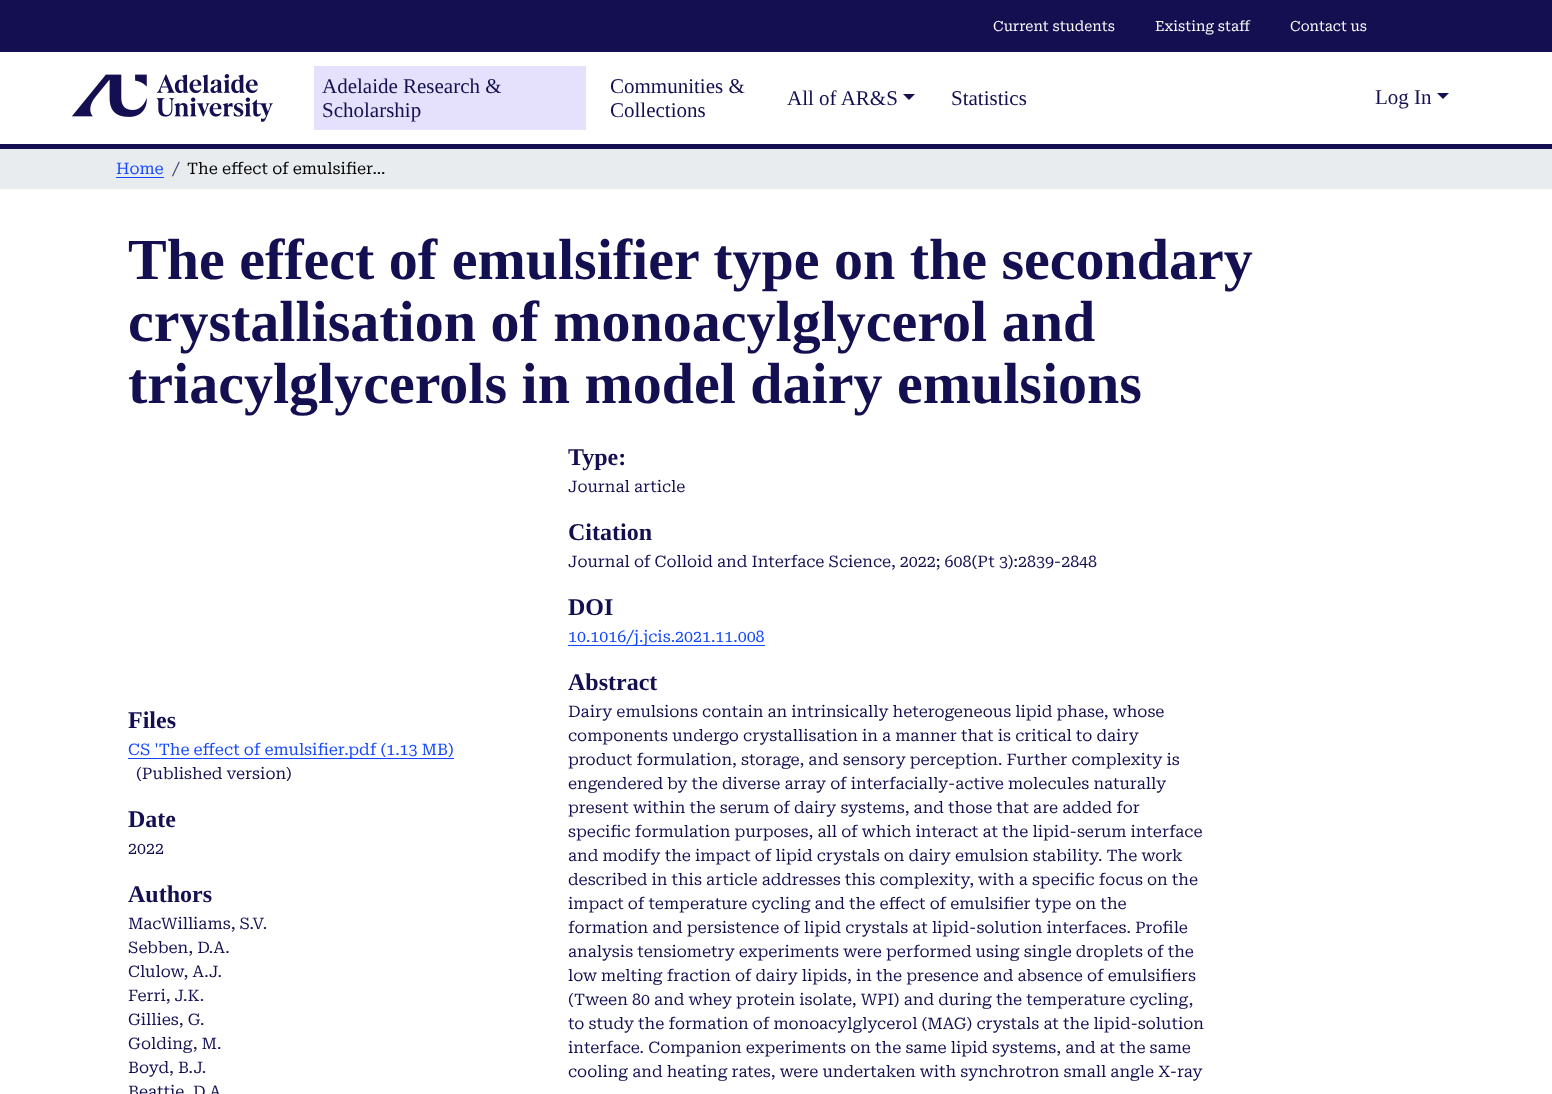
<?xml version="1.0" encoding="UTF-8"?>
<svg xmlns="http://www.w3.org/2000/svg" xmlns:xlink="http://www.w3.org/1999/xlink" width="1552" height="1094">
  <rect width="100%" height="100%" fill="#ffffff" />
  <rect y="144" width="1552" height="5" fill="#140f50" />
  <rect width="1552" height="52" fill="#140f50" />
  <image x="72" y="74" width="201" height="48" xlink:href="image1.png" />
  <rect x="314" y="66" width="272" height="64" fill="#e5e1fc" />
  <path d="M 903 94 h 12 l -6 6 z" fill="#140f50" />
  <path d="M 1437 93 h 12 l -6 6 z" fill="#140f50" />
  <rect y="149" width="1552" height="40" fill="#e9ecef" />
  <rect x="116" y="177" width="48" height="1" fill="#1448ff" />
  <rect x="128" y="758" width="248" height="1" fill="#1448ff" />
  <rect x="376" y="758" width="78" height="1" fill="#1448ff" />
  <rect x="568" y="645" width="197" height="1" fill="#1448ff" />
  <text x="993" y="31" style="font-family: 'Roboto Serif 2'; font-size: 14px; fill: #ffffff">Current students</text>
  <text x="1155" y="31" style="font-family: 'Roboto Serif 2'; font-size: 14px; fill: #ffffff">Existing staff</text>
  <text x="1290" y="31" style="font-family: 'Roboto Serif 2'; font-size: 14px; fill: #ffffff">Contact us</text>
  <text x="322" y="93" style="font-family: Liberation Serif; font-size: 21px; fill: #140f50">Adelaide Research &amp;</text>
  <text x="322" y="117" style="font-family: Liberation Serif; font-size: 21px; fill: #140f50">Scholarship</text>
  <text x="610" y="93" style="font-family: Liberation Serif; font-size: 21px; fill: #140f50">Communities &amp;</text>
  <text x="610" y="117" style="font-family: Liberation Serif; font-size: 21px; fill: #140f50">Collections</text>
  <text x="787" y="105" style="font-family: Liberation Serif; font-size: 21px; fill: #140f50">All of AR&amp;S</text>
  <text x="951" y="105" style="font-family: Liberation Serif; font-size: 21px; fill: #140f50">Statistics</text>
  <text x="1375" y="104" style="font-family: Liberation Serif; font-size: 21px; fill: #140f50">Log In</text>
  <text x="116" y="174" style="font-family: Roboto Serif; font-size: 16px; fill: #1448ff">Home</text>
  <text x="172" y="174" style="font-family: Roboto Serif; font-size: 16px; fill: #494678">/</text>
  <text x="187" y="174" style="font-family: Roboto Serif; font-size: 16px; fill: #000000">The effect of emulsifier…</text>
  <text x="128" y="279" style="font-family: Liberation Serif; font-size: 58px; font-weight: bold; fill: #140f50">The effect of emulsifier type on the secondary</text>
  <text x="128" y="341" style="font-family: Liberation Serif; font-size: 58px; font-weight: bold; fill: #140f50">crystallisation of monoacylglycerol and</text>
  <text x="128" y="403" style="font-family: Liberation Serif; font-size: 58px; font-weight: bold; fill: #140f50">triacylglycerols in model dairy emulsions</text>
  <text x="128" y="728" style="font-family: Liberation Serif; font-size: 24px; font-weight: bold; fill: #140f50">Files</text>
  <text x="128" y="755" style="font-family: Roboto Serif; font-size: 16px; fill: #1448ff">CS 'The effect of emulsifier.pdf (1.13 MB)</text>
  <text x="136" y="779" style="font-family: Roboto Serif; font-size: 16px; fill: #140f50">(Published version)</text>
  <text x="128" y="827" style="font-family: Liberation Serif; font-size: 24px; font-weight: bold; fill: #140f50">Date</text>
  <text x="128" y="854" style="font-family: Roboto Serif; font-size: 16px; fill: #140f50">2022</text>
  <text x="128" y="902" style="font-family: Liberation Serif; font-size: 24px; font-weight: bold; fill: #140f50">Authors</text>
  <text x="128" y="929" style="font-family: Roboto Serif; font-size: 16px; fill: #140f50">MacWilliams, S.V.</text>
  <text x="128" y="953" style="font-family: Roboto Serif; font-size: 16px; fill: #140f50">Sebben, D.A.</text>
  <text x="128" y="977" style="font-family: Roboto Serif; font-size: 16px; fill: #140f50">Clulow, A.J.</text>
  <text x="128" y="1001" style="font-family: Roboto Serif; font-size: 16px; fill: #140f50">Ferri, J.K.</text>
  <text x="128" y="1025" style="font-family: Roboto Serif; font-size: 16px; fill: #140f50">Gillies, G.</text>
  <text x="128" y="1049" style="font-family: Roboto Serif; font-size: 16px; fill: #140f50">Golding, M.</text>
  <text x="128" y="1073" style="font-family: Roboto Serif; font-size: 16px; fill: #140f50">Boyd, B.J.</text>
  <text x="128" y="1097" style="font-family: Roboto Serif; font-size: 16px; fill: #140f50">Beattie, D.A</text>
  <text x="568" y="465" style="font-family: Liberation Serif; font-size: 24px; font-weight: bold; fill: #140f50">Type:</text>
  <text x="568" y="492" style="font-family: Roboto Serif; font-size: 16px; fill: #140f50">Journal article</text>
  <text x="568" y="540" style="font-family: Liberation Serif; font-size: 24px; font-weight: bold; fill: #140f50">Citation</text>
  <text x="568" y="567" style="font-family: Roboto Serif; font-size: 16px; fill: #140f50">Journal of Colloid and Interface Science, 2022; 608(Pt 3):2839-2848</text>
  <text x="568" y="615" style="font-family: Liberation Serif; font-size: 24px; font-weight: bold; fill: #140f50">DOI</text>
  <text x="568" y="642" style="font-family: Roboto Serif; font-size: 16px; fill: #1448ff">10.1016/j.jcis.2021.11.008</text>
  <text x="568" y="690" style="font-family: Liberation Serif; font-size: 24px; font-weight: bold; fill: #140f50">Abstract</text>
  <text x="568" y="717" style="font-family: Roboto Serif; font-size: 16px; fill: #140f50">Dairy emulsions contain an intrinsically heterogeneous lipid phase, whose</text>
  <text x="568" y="741" style="font-family: Roboto Serif; font-size: 16px; fill: #140f50">components undergo crystallisation in a manner that is critical to dairy</text>
  <text x="568" y="765" style="font-family: Roboto Serif; font-size: 16px; fill: #140f50">product formulation, storage, and sensory perception. Further complexity is</text>
  <text x="568" y="789" style="font-family: Roboto Serif; font-size: 16px; fill: #140f50">engendered by the diverse array of interfacially-active molecules naturally</text>
  <text x="568" y="813" style="font-family: Roboto Serif; font-size: 16px; fill: #140f50">present within the serum of dairy systems, and those that are added for</text>
  <text x="568" y="837" style="font-family: Roboto Serif; font-size: 16px; fill: #140f50">specific formulation purposes, all of which interact at the lipid-serum interface</text>
  <text x="568" y="861" style="font-family: Roboto Serif; font-size: 16px; fill: #140f50">and modify the impact of lipid crystals on dairy emulsion stability. The work</text>
  <text x="568" y="885" style="font-family: Roboto Serif; font-size: 16px; fill: #140f50">described in this article addresses this complexity, with a specific focus on the</text>
  <text x="568" y="909" style="font-family: Roboto Serif; font-size: 16px; fill: #140f50">impact of temperature cycling and the effect of emulsifier type on the</text>
  <text x="568" y="933" style="font-family: Roboto Serif; font-size: 16px; fill: #140f50">formation and persistence of lipid crystals at lipid-solution interfaces. Profile</text>
  <text x="568" y="957" style="font-family: Roboto Serif; font-size: 16px; fill: #140f50">analysis tensiometry experiments were performed using single droplets of the</text>
  <text x="568" y="981" style="font-family: Roboto Serif; font-size: 16px; fill: #140f50">low melting fraction of dairy lipids, in the presence and absence of emulsifiers</text>
  <text x="568" y="1005" style="font-family: Roboto Serif; font-size: 16px; fill: #140f50">(Tween 80 and whey protein isolate, WPI) and during the temperature cycling,</text>
  <text x="568" y="1029" style="font-family: Roboto Serif; font-size: 16px; fill: #140f50">to study the formation of monoacylglycerol (MAG) crystals at the lipid-solution</text>
  <text x="568" y="1053" style="font-family: Roboto Serif; font-size: 16px; fill: #140f50">interface. Companion experiments on the same lipid systems, and at the same</text>
  <text x="568" y="1077" style="font-family: Roboto Serif; font-size: 16px; fill: #140f50">cooling and heating rates, were undertaken with synchrotron small angle X-ray</text>
</svg>
